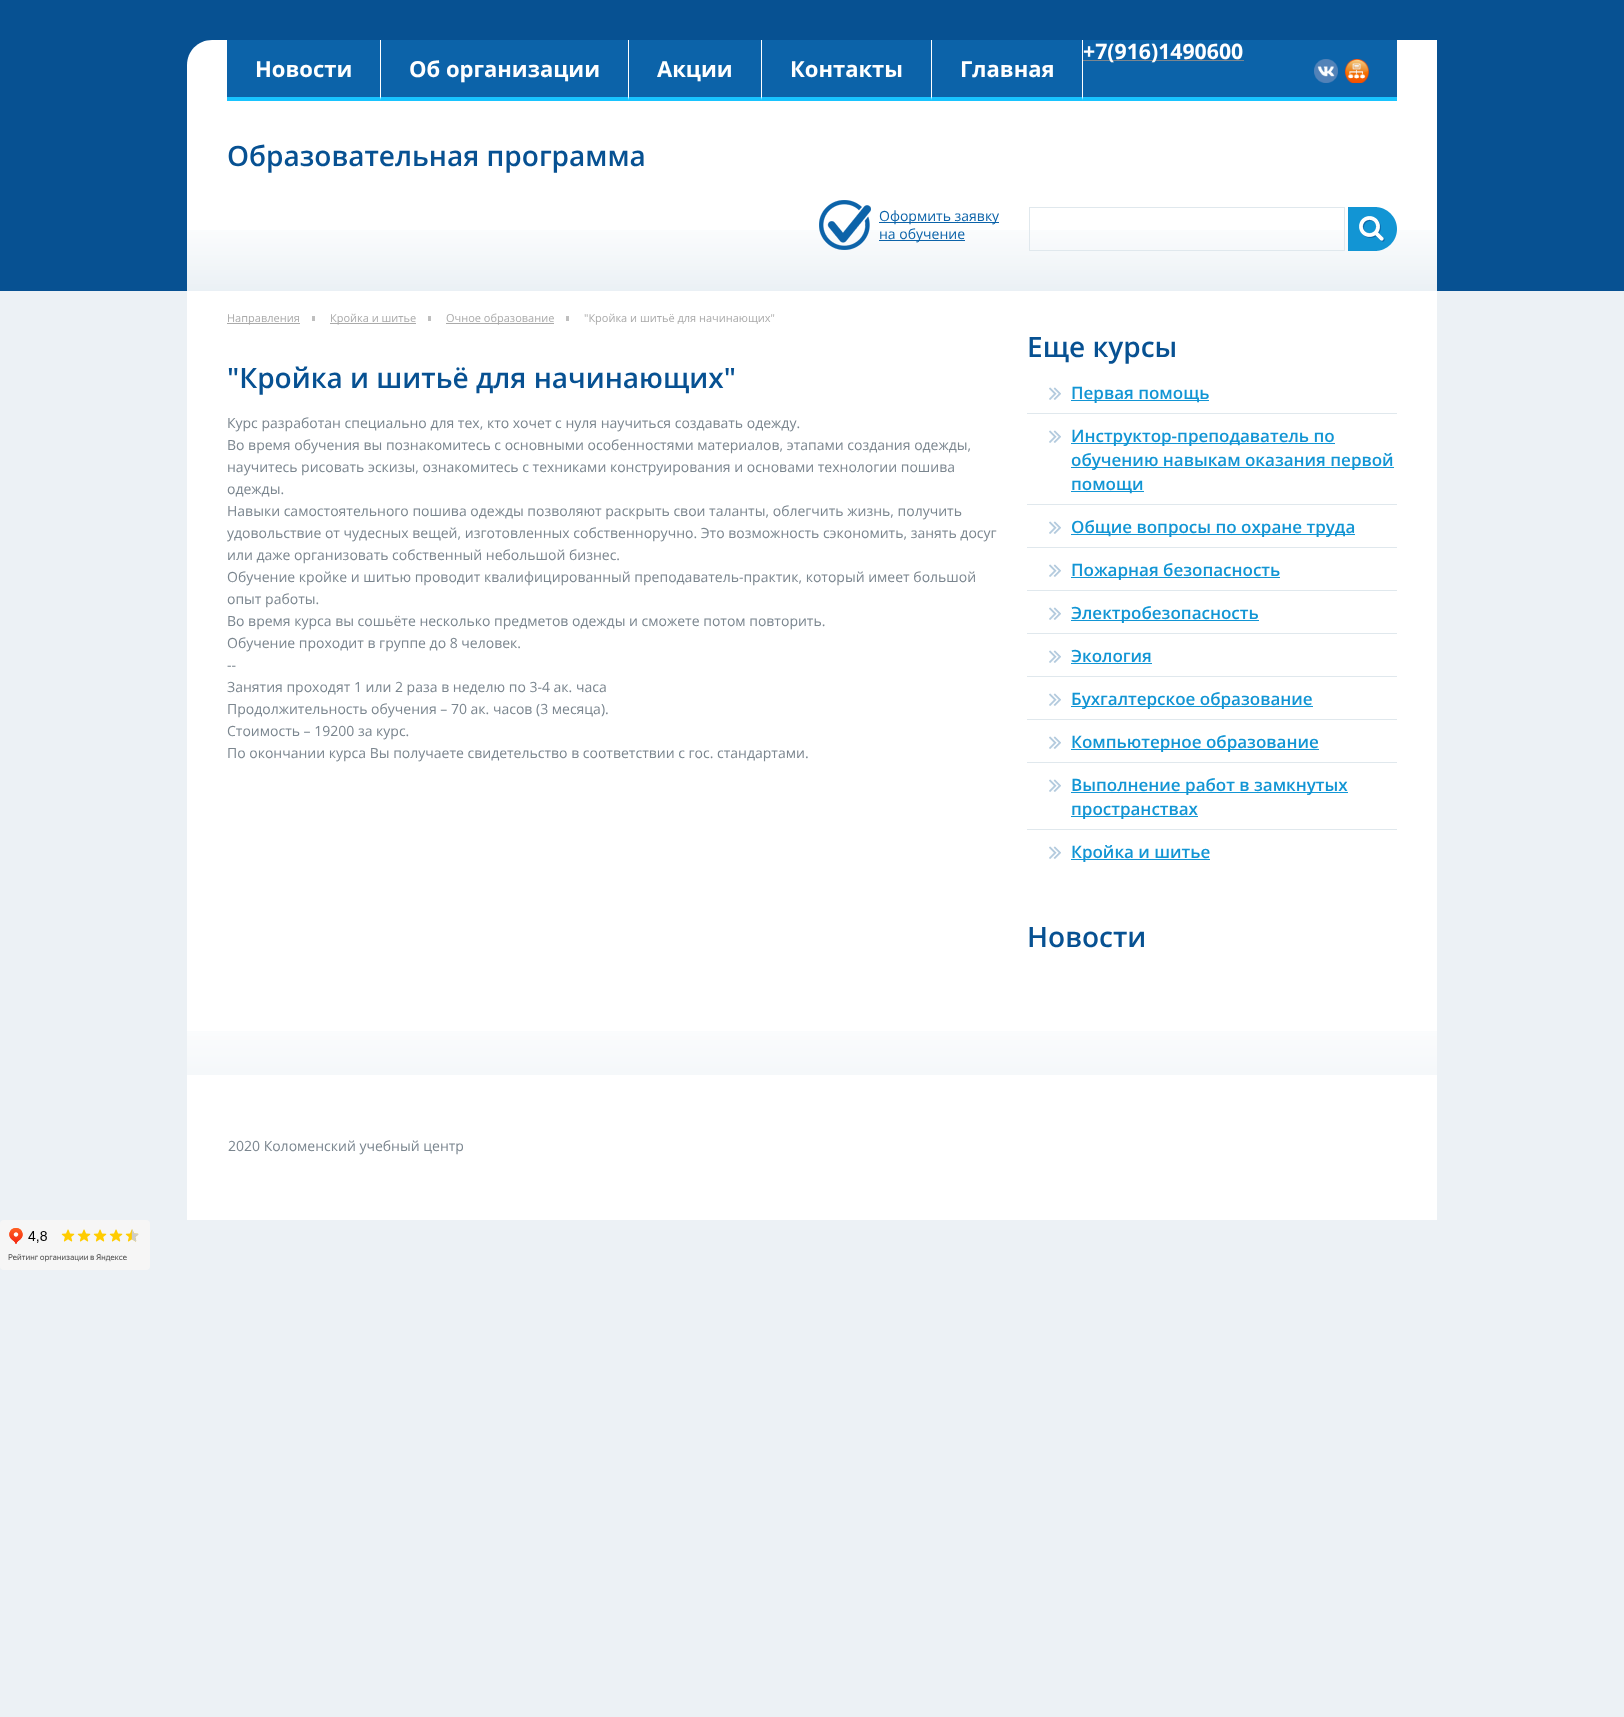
<?xml version="1.0" encoding="UTF-8"?>
<svg xmlns="http://www.w3.org/2000/svg" xmlns:xlink="http://www.w3.org/1999/xlink" width="1624" height="1717">
  <rect width="100%" height="100%" fill="#ecf1f5" />
  <rect width="1624" height="291" fill="#075192" />
  <path d="M 212 40 h 1225 v 251 h -1250 v -226 c 0 -14 11 -25 25 -25 z" fill="#ffffff" />
  <image x="187" y="230" width="1250" height="61" xlink:href="image1.png" />
  <rect x="227" y="40" width="1170" height="57" fill="#0c63a9" />
  <rect x="380" y="97" width="1017" height="4" fill="#18c4ff" />
  <rect x="1083" y="60" width="161" height="1" fill="#7b868f" />
  <image x="1314" y="59" width="24" height="24" xlink:href="image2.png" />
  <image x="1345" y="59" width="24" height="24" xlink:href="image3.png" />
  <path d="M 381 40 v 61 l -1 -4 v -57 z" fill="#ffffff" />
  <path d="M 381 101 h -154 v -4 h 153 z" fill="#18c4ff" />
  <path d="M 629 40 v 61 l -1 -4 v -57 z" fill="#ffffff" />
  <path d="M 629 101 h -248 v -4 h 247 z" fill="#18c4ff" />
  <path d="M 762 40 v 61 l -1 -4 v -57 z" fill="#ffffff" />
  <path d="M 762 101 h -133 v -4 h 132 z" fill="#18c4ff" />
  <path d="M 932 40 v 61 l -1 -4 v -57 z" fill="#ffffff" />
  <path d="M 932 101 h -170 v -4 h 169 z" fill="#18c4ff" />
  <path d="M 1083 40 v 61 l -1 -4 v -57 z" fill="#ffffff" />
  <path d="M 1083 101 h -151 v -4 h 150 z" fill="#18c4ff" />
  <image x="819" y="200" width="52" height="50" xlink:href="image4.png" />
  <rect x="879" y="222" width="120" height="1" fill="#0c63a9" />
  <rect x="879" y="240" width="86" height="1" fill="#0c63a9" />
  <rect x="1029.5" y="207.5" width="315" height="43" fill="none" stroke="#e0e8ed" />
  <image x="1348" y="207" width="49" height="44" xlink:href="image5.png" />
  <rect x="187" y="291" width="1250" height="740" fill="#ffffff" />
  <image x="187" y="1031" width="1250" height="44" xlink:href="image6.png" />
  <rect x="312" y="316" width="3" height="5" fill="#bfbfbf" />
  <rect x="227" y="323" width="73" height="1" fill="#aaaaaa" />
  <rect x="428" y="316" width="3" height="5" fill="#bfbfbf" />
  <rect x="330" y="323" width="86" height="1" fill="#aaaaaa" />
  <rect x="566" y="316" width="3" height="5" fill="#bfbfbf" />
  <rect x="446" y="323" width="108" height="1" fill="#aaaaaa" />
  <image x="1049" y="387" width="12" height="13" xlink:href="image7.png" />
  <rect x="1071" y="400" width="138" height="1" fill="#1295d4" />
  <rect x="1027" y="413" width="370" height="1" fill="#e0e8ed" />
  <image x="1049" y="430" width="12" height="13" xlink:href="image7.png" />
  <rect x="1071" y="443" width="264" height="1" fill="#1295d4" />
  <rect x="1071" y="467" width="323" height="1" fill="#1295d4" />
  <rect x="1071" y="491" width="73" height="1" fill="#1295d4" />
  <rect x="1027" y="504" width="370" height="1" fill="#e0e8ed" />
  <image x="1049" y="521" width="12" height="13" xlink:href="image7.png" />
  <rect x="1071" y="534" width="284" height="1" fill="#1295d4" />
  <rect x="1027" y="547" width="370" height="1" fill="#e0e8ed" />
  <image x="1049" y="564" width="12" height="13" xlink:href="image7.png" />
  <rect x="1071" y="577" width="209" height="1" fill="#1295d4" />
  <rect x="1027" y="590" width="370" height="1" fill="#e0e8ed" />
  <image x="1049" y="607" width="12" height="13" xlink:href="image7.png" />
  <rect x="1071" y="620" width="188" height="1" fill="#1295d4" />
  <rect x="1027" y="633" width="370" height="1" fill="#e0e8ed" />
  <image x="1049" y="650" width="12" height="13" xlink:href="image7.png" />
  <rect x="1071" y="663" width="81" height="1" fill="#1295d4" />
  <rect x="1027" y="676" width="370" height="1" fill="#e0e8ed" />
  <image x="1049" y="693" width="12" height="13" xlink:href="image7.png" />
  <rect x="1071" y="706" width="242" height="1" fill="#1295d4" />
  <rect x="1027" y="719" width="370" height="1" fill="#e0e8ed" />
  <image x="1049" y="736" width="12" height="13" xlink:href="image7.png" />
  <rect x="1071" y="749" width="248" height="1" fill="#1295d4" />
  <rect x="1027" y="762" width="370" height="1" fill="#e0e8ed" />
  <image x="1049" y="779" width="12" height="13" xlink:href="image7.png" />
  <rect x="1071" y="792" width="277" height="1" fill="#1295d4" />
  <rect x="1071" y="816" width="127" height="1" fill="#1295d4" />
  <rect x="1027" y="829" width="370" height="1" fill="#e0e8ed" />
  <image x="1049" y="846" width="12" height="13" xlink:href="image7.png" />
  <rect x="1071" y="859" width="139" height="1" fill="#1295d4" />
  <rect x="187" y="1075" width="1250" height="145" fill="#ffffff" />
  <image x="0" y="1220" width="150" height="50" xlink:href="image8.png" />
  <text x="1083" y="59" style="font-family: Open Sans; font-size: 21.25px; font-weight: bold; fill: #ffffff">+7(916)1490600</text>
  <text x="255" y="77" style="font-family: Open Sans; font-size: 22px; font-weight: bold; fill: #ffffff">Новости</text>
  <text x="409" y="77" style="font-family: Open Sans; font-size: 22px; font-weight: bold; fill: #ffffff">Об организации</text>
  <text x="657" y="77" style="font-family: Open Sans; font-size: 22px; font-weight: bold; fill: #ffffff">Акции</text>
  <text x="790" y="77" style="font-family: Open Sans; font-size: 22px; font-weight: bold; fill: #ffffff">Контакты</text>
  <text x="960" y="77" style="font-family: Open Sans; font-size: 22px; font-weight: bold; fill: #ffffff">Главная</text>
  <text x="227" y="166" style="font-family: Open Sans; font-size: 28px; font-weight: 600; fill: #075192">Образовательная программа</text>
  <text x="879" y="221" style="font-family: Open Sans; font-size: 14px; fill: #0c63a9">Оформить заявку</text>
  <text x="879" y="239" style="font-family: Open Sans; font-size: 14px; fill: #0c63a9">на обучение</text>
  <text x="227" y="322" style="font-family: Open Sans; font-size: 11px; fill: #aaaaaa">Направления</text>
  <text x="330" y="322" style="font-family: Open Sans; font-size: 11px; fill: #aaaaaa">Кройка и шитье</text>
  <text x="446" y="322" style="font-family: Open Sans; font-size: 11px; fill: #aaaaaa">Очное образование</text>
  <text x="584" y="322" style="font-family: Open Sans; font-size: 11px; fill: #aaaaaa">"Кройка и шитьё для начинающих"</text>
  <text x="227" y="388" style="font-family: Open Sans; font-size: 28px; font-weight: 600; fill: #075192">"Кройка и шитьё для начинающих"</text>
  <text x="227" y="428" style="font-family: Open Sans; font-size: 14px; fill: #7b868f">Курс разработан специально для тех, кто хочет с нуля научиться создавать одежду.</text>
  <text x="227" y="450" style="font-family: Open Sans; font-size: 14px; fill: #7b868f">Во время обучения вы познакомитесь с основными особенностями материалов, этапами создания одежды,</text>
  <text x="227" y="472" style="font-family: Open Sans; font-size: 14px; fill: #7b868f">научитесь рисовать эскизы, ознакомитесь с техниками конструирования и основами технологии пошива</text>
  <text x="227" y="494" style="font-family: Open Sans; font-size: 14px; fill: #7b868f">одежды.</text>
  <text x="227" y="516" style="font-family: Open Sans; font-size: 14px; fill: #7b868f">Навыки самостоятельного пошива одежды позволяют раскрыть свои таланты, облегчить жизнь, получить</text>
  <text x="227" y="538" style="font-family: Open Sans; font-size: 14px; fill: #7b868f">удовольствие от чудесных вещей, изготовленных собственноручно. Это возможность сэкономить, занять досуг</text>
  <text x="227" y="560" style="font-family: Open Sans; font-size: 14px; fill: #7b868f">или даже организовать собственный небольшой бизнес.</text>
  <text x="227" y="582" style="font-family: Open Sans; font-size: 14px; fill: #7b868f">Обучение кройке и шитью проводит квалифицированный преподаватель-практик, который имеет большой</text>
  <text x="227" y="604" style="font-family: Open Sans; font-size: 14px; fill: #7b868f">опыт работы.</text>
  <text x="227" y="626" style="font-family: Open Sans; font-size: 14px; fill: #7b868f">Во время курса вы сошьёте несколько предметов одежды и сможете потом повторить.</text>
  <text x="227" y="648" style="font-family: Open Sans; font-size: 14px; fill: #7b868f">Обучение проходит в группе до 8 человек.</text>
  <text x="227" y="670" style="font-family: Open Sans; font-size: 14px; fill: #7b868f">--</text>
  <text x="227" y="692" style="font-family: Open Sans; font-size: 14px; fill: #7b868f">Занятия проходят 1 или 2 раза в неделю по 3-4 ак. часа</text>
  <text x="227" y="714" style="font-family: Open Sans; font-size: 14px; fill: #7b868f">Продолжительность обучения – 70 ак. часов (3 месяца).</text>
  <text x="227" y="736" style="font-family: Open Sans; font-size: 14px; fill: #7b868f">Стоимость – 19200 за курс.</text>
  <text x="227" y="758" style="font-family: Open Sans; font-size: 14px; fill: #7b868f">По окончании курса Вы получаете свидетельство в соответствии с гос. стандартами.</text>
  <text x="1027" y="357" style="font-family: Open Sans; font-size: 28px; font-weight: 600; fill: #075192">Еще курсы</text>
  <text x="1071" y="399" style="font-family: Open Sans; font-size: 17px; font-weight: 600; fill: #1295d4">Первая помощь</text>
  <text x="1071" y="442" style="font-family: Open Sans; font-size: 17px; font-weight: 600; fill: #1295d4">Инструктор-преподаватель по</text>
  <text x="1071" y="466" style="font-family: Open Sans; font-size: 17px; font-weight: 600; fill: #1295d4">обучению навыкам оказания первой</text>
  <text x="1071" y="490" style="font-family: Open Sans; font-size: 17px; font-weight: 600; fill: #1295d4">помощи</text>
  <text x="1071" y="533" style="font-family: Open Sans; font-size: 17px; font-weight: 600; fill: #1295d4">Общие вопросы по охране труда</text>
  <text x="1071" y="576" style="font-family: Open Sans; font-size: 17px; font-weight: 600; fill: #1295d4">Пожарная безопасность</text>
  <text x="1071" y="619" style="font-family: Open Sans; font-size: 17px; font-weight: 600; fill: #1295d4">Электробезопасность</text>
  <text x="1071" y="662" style="font-family: Open Sans; font-size: 17px; font-weight: 600; fill: #1295d4">Экология</text>
  <text x="1071" y="705" style="font-family: Open Sans; font-size: 17px; font-weight: 600; fill: #1295d4">Бухгалтерское образование</text>
  <text x="1071" y="748" style="font-family: Open Sans; font-size: 17px; font-weight: 600; fill: #1295d4">Компьютерное образование</text>
  <text x="1071" y="791" style="font-family: Open Sans; font-size: 17px; font-weight: 600; fill: #1295d4">Выполнение работ в замкнутых</text>
  <text x="1071" y="815" style="font-family: Open Sans; font-size: 17px; font-weight: 600; fill: #1295d4">пространствах</text>
  <text x="1071" y="858" style="font-family: Open Sans; font-size: 17px; font-weight: 600; fill: #1295d4">Кройка и шитье</text>
  <text x="1027" y="947" style="font-family: Open Sans; font-size: 28px; font-weight: 600; fill: #075192">Новости</text>
  <text x="228" y="1151" style="font-family: Open Sans; font-size: 14px; fill: #7b868f">2020 Коломенский учебный центр</text>
</svg>
